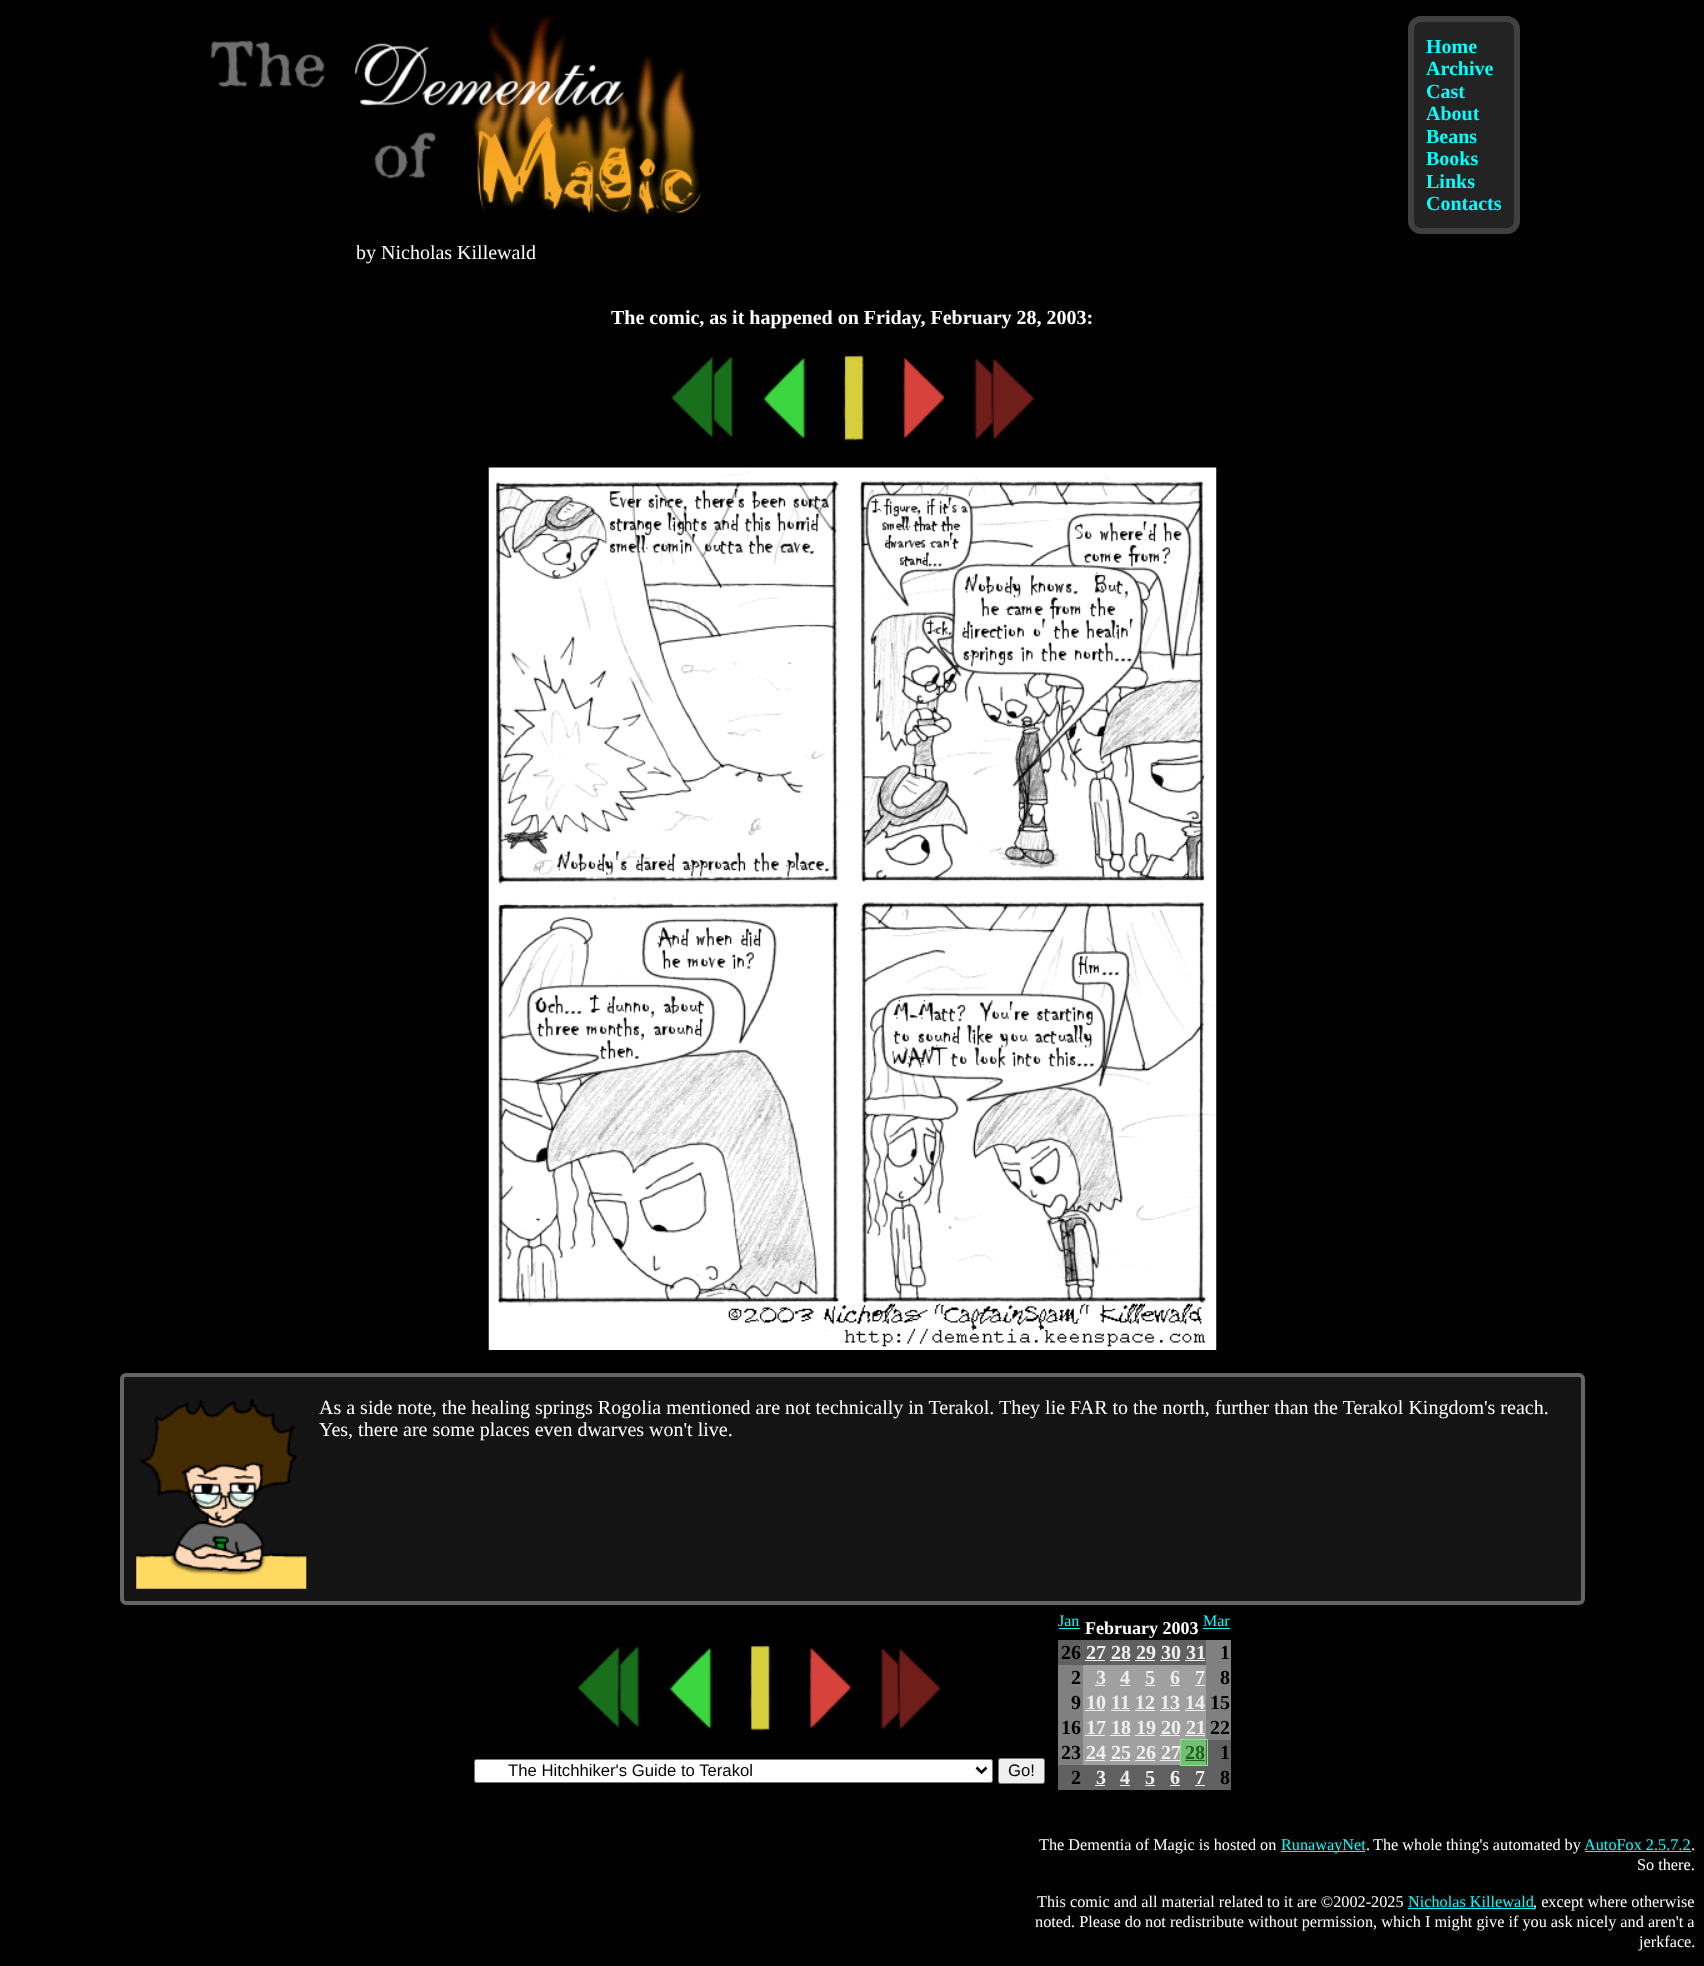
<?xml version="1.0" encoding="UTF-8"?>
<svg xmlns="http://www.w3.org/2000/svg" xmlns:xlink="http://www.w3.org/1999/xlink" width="1704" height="1966">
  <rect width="100%" height="100%" fill="#000000" />
  <rect x="1411" y="19" width="106" height="212" rx="10" fill="#232323" stroke="#404040" stroke-width="6" />
  <image x="210" y="14" width="492" height="202" xlink:href="image1.png" />
  <image x="671" y="356" width="62" height="82" xlink:href="image2.png" />
  <image x="763" y="358" width="43" height="81" xlink:href="image3.png" />
  <image x="843" y="355" width="21" height="86" xlink:href="image4.png" />
  <image x="902" y="357" width="44" height="82" xlink:href="image5.png" />
  <image x="974" y="358" width="61" height="82" xlink:href="image6.png" />
  <image x="488" y="467" width="729" height="883" xlink:href="image7.png" />
  <rect x="122" y="1375" width="1461" height="228" rx="4" fill="#141414" stroke="#656565" stroke-width="4" />
  <image x="136" y="1399" width="171" height="190" xlink:href="image8.png" />
  <image x="577" y="1646" width="62" height="82" xlink:href="image9.png" />
  <image x="669" y="1648" width="43" height="81" xlink:href="image10.png" />
  <image x="750" y="1645" width="21" height="86" xlink:href="image11.png" />
  <image x="808" y="1647" width="44" height="82" xlink:href="image12.png" />
  <image x="880" y="1648" width="61" height="82" xlink:href="image13.png" />
  <rect x="474.5" y="1759.5" width="518" height="23" rx="2" fill="#ffffff" stroke="#767676" />
  <path d="M 976.5 1767.5 l 5 5 l 5 -5" fill="none" stroke="#000000" stroke-width="2.5" />
  <rect x="998.5" y="1758.5" width="46" height="25" rx="2" fill="#efefef" stroke="#767676" />
  <rect x="1059" y="1628" width="21" height="1" fill="#00ffff" />
  <rect x="1203" y="1628" width="27" height="1" fill="#00ffff" />
  <rect x="1206" y="1640" width="25" height="25" fill="#808080" />
  <rect x="1058" y="1640" width="148" height="25" fill="#606060" />
  <rect x="1085" y="1660" width="20" height="1" fill="#efefef" />
  <rect x="1110" y="1660" width="20" height="1" fill="#efefef" />
  <rect x="1135" y="1660" width="20" height="1" fill="#efefef" />
  <rect x="1160" y="1660" width="20" height="1" fill="#efefef" />
  <rect x="1185" y="1660" width="20" height="1" fill="#efefef" />
  <rect x="1058" y="1665" width="173" height="75" fill="#808080" />
  <rect x="1083" y="1665" width="123" height="25" fill="#a0a0a0" />
  <rect x="1095" y="1685" width="10" height="1" fill="#efefef" />
  <rect x="1120" y="1685" width="10" height="1" fill="#efefef" />
  <rect x="1145" y="1685" width="10" height="1" fill="#efefef" />
  <rect x="1170" y="1685" width="10" height="1" fill="#efefef" />
  <rect x="1195" y="1685" width="10" height="1" fill="#efefef" />
  <rect x="1083" y="1690" width="123" height="25" fill="#a0a0a0" />
  <rect x="1085" y="1710" width="20" height="1" fill="#efefef" />
  <rect x="1111" y="1710" width="19" height="1" fill="#efefef" />
  <rect x="1135" y="1710" width="20" height="1" fill="#efefef" />
  <rect x="1160" y="1710" width="20" height="1" fill="#efefef" />
  <rect x="1185" y="1710" width="20" height="1" fill="#efefef" />
  <rect x="1181" y="1715" width="25" height="24" fill="#a0a0a0" />
  <rect x="1185" y="1735" width="20" height="1" fill="#efefef" />
  <rect x="1083" y="1715" width="98" height="25" fill="#a0a0a0" />
  <rect x="1085" y="1735" width="20" height="1" fill="#efefef" />
  <rect x="1110" y="1735" width="20" height="1" fill="#efefef" />
  <rect x="1135" y="1735" width="20" height="1" fill="#efefef" />
  <rect x="1160" y="1735" width="20" height="1" fill="#efefef" />
  <rect x="1058" y="1740" width="25" height="25" fill="#808080" />
  <rect x="1083" y="1740" width="97" height="25" fill="#a0a0a0" />
  <rect x="1085" y="1760" width="20" height="1" fill="#efefef" />
  <rect x="1181" y="1740" width="25" height="25" fill="#70c070" />
  <rect x="1185" y="1760" width="20" height="1" fill="#206020" />
  <rect x="1206" y="1740" width="25" height="50" fill="#606060" />
  <rect x="1058" y="1765" width="123" height="25" fill="#606060" />
  <rect x="1180.5" y="1739.5" width="27" height="26" fill="none" stroke="#90e090" />
  <rect x="1110" y="1760" width="20" height="1" fill="#efefef" />
  <rect x="1135" y="1760" width="20" height="1" fill="#efefef" />
  <rect x="1160" y="1760" width="20" height="1" fill="#efefef" />
  <rect x="1095" y="1785" width="10" height="1" fill="#efefef" />
  <rect x="1120" y="1785" width="10" height="1" fill="#efefef" />
  <rect x="1145" y="1785" width="10" height="1" fill="#efefef" />
  <rect x="1170" y="1785" width="10" height="1" fill="#efefef" />
  <rect x="1181" y="1766" width="25" height="24" fill="#606060" />
  <rect x="1195" y="1785" width="10" height="1" fill="#efefef" />
  <rect x="1281" y="1851" width="84" height="1" fill="#00ffff" />
  <rect x="1585" y="1851" width="106" height="1" fill="#00ffff" />
  <rect x="1408" y="1908" width="126" height="1" fill="#00ffff" />
  <text x="1426" y="53" style="font-family: Liberation Serif; font-size: 20px; font-weight: bold; fill: #00ffff">Home</text>
  <text x="1426" y="75" style="font-family: Liberation Serif; font-size: 20px; font-weight: bold; fill: #00ffff">Archive</text>
  <text x="1426" y="98" style="font-family: Liberation Serif; font-size: 20px; font-weight: bold; fill: #00ffff">Cast</text>
  <text x="1426" y="120" style="font-family: Liberation Serif; font-size: 20px; font-weight: bold; fill: #00ffff">About</text>
  <text x="1426" y="143" style="font-family: Liberation Serif; font-size: 20px; font-weight: bold; fill: #00ffff">Beans</text>
  <text x="1426" y="165" style="font-family: Liberation Serif; font-size: 20px; font-weight: bold; fill: #00ffff">Books</text>
  <text x="1426" y="188" style="font-family: Liberation Serif; font-size: 20px; font-weight: bold; fill: #00ffff">Links</text>
  <text x="1426" y="210" style="font-family: Liberation Serif; font-size: 20px; font-weight: bold; fill: #00ffff">Contacts</text>
  <text x="356" y="259" style="font-family: Liberation Serif; font-size: 20px; fill: #ffffff">by Nicholas Killewald</text>
  <text x="611" y="324" style="font-family: Liberation Serif; font-size: 20px; font-weight: bold; fill: #ffffff">The comic, as it happened on Friday, February 28, 2003:</text>
  <text x="319" y="1414" style="font-family: Liberation Serif; font-size: 20px; fill: #ffffff">As a side note, the healing springs Rogolia mentioned are not technically in Terakol.</text>
  <text x="999" y="1414" style="font-family: Liberation Serif; font-size: 20px; fill: #ffffff">They lie FAR to the north, further than the Terakol Kingdom's reach.</text>
  <text x="319" y="1436" style="font-family: Liberation Serif; font-size: 20px; fill: #ffffff">Yes, there are some places even dwarves won't live.</text>
  <text x="508" y="1776" style="font-family: Liberation Sans; font-size: 16.7px; fill: #000000">The Hitchhiker's Guide to Terakol</text>
  <text x="1008" y="1776" style="font-family: Liberation Sans; font-size: 16.7px; fill: #000000">Go!</text>
  <text x="1058" y="1626" style="font-family: Liberation Serif; font-size: 16px; fill: #00ffff">Jan</text>
  <text x="1085" y="1634" style="font-family: Liberation Serif; font-size: 18px; font-weight: bold; fill: #ffffff">February 2003</text>
  <text x="1203" y="1626" style="font-family: Liberation Serif; font-size: 16px; fill: #00ffff">Mar</text>
  <text x="1061" y="1659" style="font-family: Liberation Serif; font-size: 20px; font-weight: bold; fill: #000000">26</text>
  <text x="1086" y="1659" style="font-family: Liberation Serif; font-size: 20px; font-weight: bold; fill: #efefef">27 28 29 30 31</text>
  <text x="1220" y="1659" style="font-family: Liberation Serif; font-size: 20px; font-weight: bold; fill: #000000">1</text>
  <text x="1071" y="1684" style="font-family: Liberation Serif; font-size: 20px; font-weight: bold; fill: #000000">2</text>
  <text x="1096" y="1684" style="font-family: Liberation Serif; font-size: 20px; font-weight: bold; fill: #efefef">3</text>
  <text x="1120" y="1684" style="font-family: Liberation Serif; font-size: 20px; font-weight: bold; fill: #efefef">4</text>
  <text x="1145" y="1684" style="font-family: Liberation Serif; font-size: 20px; font-weight: bold; fill: #efefef">5</text>
  <text x="1170" y="1684" style="font-family: Liberation Serif; font-size: 20px; font-weight: bold; fill: #efefef">6</text>
  <text x="1195" y="1684" style="font-family: Liberation Serif; font-size: 20px; font-weight: bold; fill: #efefef">7</text>
  <text x="1220" y="1684" style="font-family: Liberation Serif; font-size: 20px; font-weight: bold; fill: #000000">8</text>
  <text x="1071" y="1709" style="font-family: Liberation Serif; font-size: 20px; font-weight: bold; fill: #000000">9</text>
  <text x="1086" y="1709" style="font-family: Liberation Serif; font-size: 20px; font-weight: bold; fill: #efefef">10</text>
  <text x="1111" y="1709" style="font-family: Liberation Serif; font-size: 20px; font-weight: bold; fill: #efefef">11 12 13 14</text>
  <text x="1210" y="1709" style="font-family: Liberation Serif; font-size: 20px; font-weight: bold; fill: #000000">15</text>
  <text x="1061" y="1734" style="font-family: Liberation Serif; font-size: 20px; font-weight: bold; fill: #000000">16</text>
  <text x="1086" y="1734" style="font-family: Liberation Serif; font-size: 20px; font-weight: bold; fill: #efefef">17 18 19 20 21</text>
  <text x="1210" y="1734" style="font-family: Liberation Serif; font-size: 20px; font-weight: bold; fill: #000000">22</text>
  <text x="1061" y="1759" style="font-family: Liberation Serif; font-size: 20px; font-weight: bold; fill: #000000">23</text>
  <text x="1086" y="1759" style="font-family: Liberation Serif; font-size: 20px; font-weight: bold; fill: #efefef">24 25 26 27</text>
  <text x="1185" y="1759" style="font-family: Liberation Serif; font-size: 20px; font-weight: bold; fill: #206020">28</text>
  <text x="1220" y="1759" style="font-family: Liberation Serif; font-size: 20px; font-weight: bold; fill: #000000">1</text>
  <text x="1071" y="1784" style="font-family: Liberation Serif; font-size: 20px; font-weight: bold; fill: #000000">2</text>
  <text x="1096" y="1784" style="font-family: Liberation Serif; font-size: 20px; font-weight: bold; fill: #efefef">3</text>
  <text x="1120" y="1784" style="font-family: Liberation Serif; font-size: 20px; font-weight: bold; fill: #efefef">4</text>
  <text x="1145" y="1784" style="font-family: Liberation Serif; font-size: 20px; font-weight: bold; fill: #efefef">5</text>
  <text x="1170" y="1784" style="font-family: Liberation Serif; font-size: 20px; font-weight: bold; fill: #efefef">6</text>
  <text x="1195" y="1784" style="font-family: Liberation Serif; font-size: 20px; font-weight: bold; fill: #efefef">7</text>
  <text x="1220" y="1784" style="font-family: Liberation Serif; font-size: 20px; font-weight: bold; fill: #000000">8</text>
  <text x="1039" y="1850" style="font-family: Liberation Serif; font-size: 16.25px; fill: #ffffff">The Dementia of Magic is hosted on</text>
  <text x="1281" y="1850" style="font-family: Liberation Serif; font-size: 16.25px; fill: #00ffff">RunawayNet</text>
  <text x="1366" y="1850" style="font-family: Liberation Serif; font-size: 16.25px; fill: #ffffff">.</text>
  <text x="1373" y="1850" style="font-family: Liberation Serif; font-size: 16.25px; fill: #ffffff">The whole thing's automated by</text>
  <text x="1584" y="1850" style="font-family: Liberation Serif; font-size: 16.25px; fill: #00ffff">AutoFox 2.5.7.2</text>
  <text x="1691" y="1850" style="font-family: Liberation Serif; font-size: 16.25px; fill: #ffffff">.</text>
  <text x="1637" y="1870" style="font-family: Liberation Serif; font-size: 16.25px; fill: #ffffff">So there.</text>
  <text x="1037" y="1907" style="font-family: Liberation Serif; font-size: 16.25px; fill: #ffffff">This comic and all material related to it are ©2002-2025</text>
  <text x="1408" y="1907" style="font-family: Liberation Serif; font-size: 16.25px; fill: #00ffff">Nicholas Killewald</text>
  <text x="1533" y="1907" style="font-family: Liberation Serif; font-size: 16.25px; fill: #ffffff">, except where otherwise</text>
  <text x="1035" y="1927" style="font-family: Liberation Serif; font-size: 16.25px; fill: #ffffff">noted. Please do not redistribute without permission, which I might give if you ask nicely and aren't a</text>
  <text x="1639" y="1947" style="font-family: Liberation Serif; font-size: 16.25px; fill: #ffffff">jerkface.</text>
</svg>
